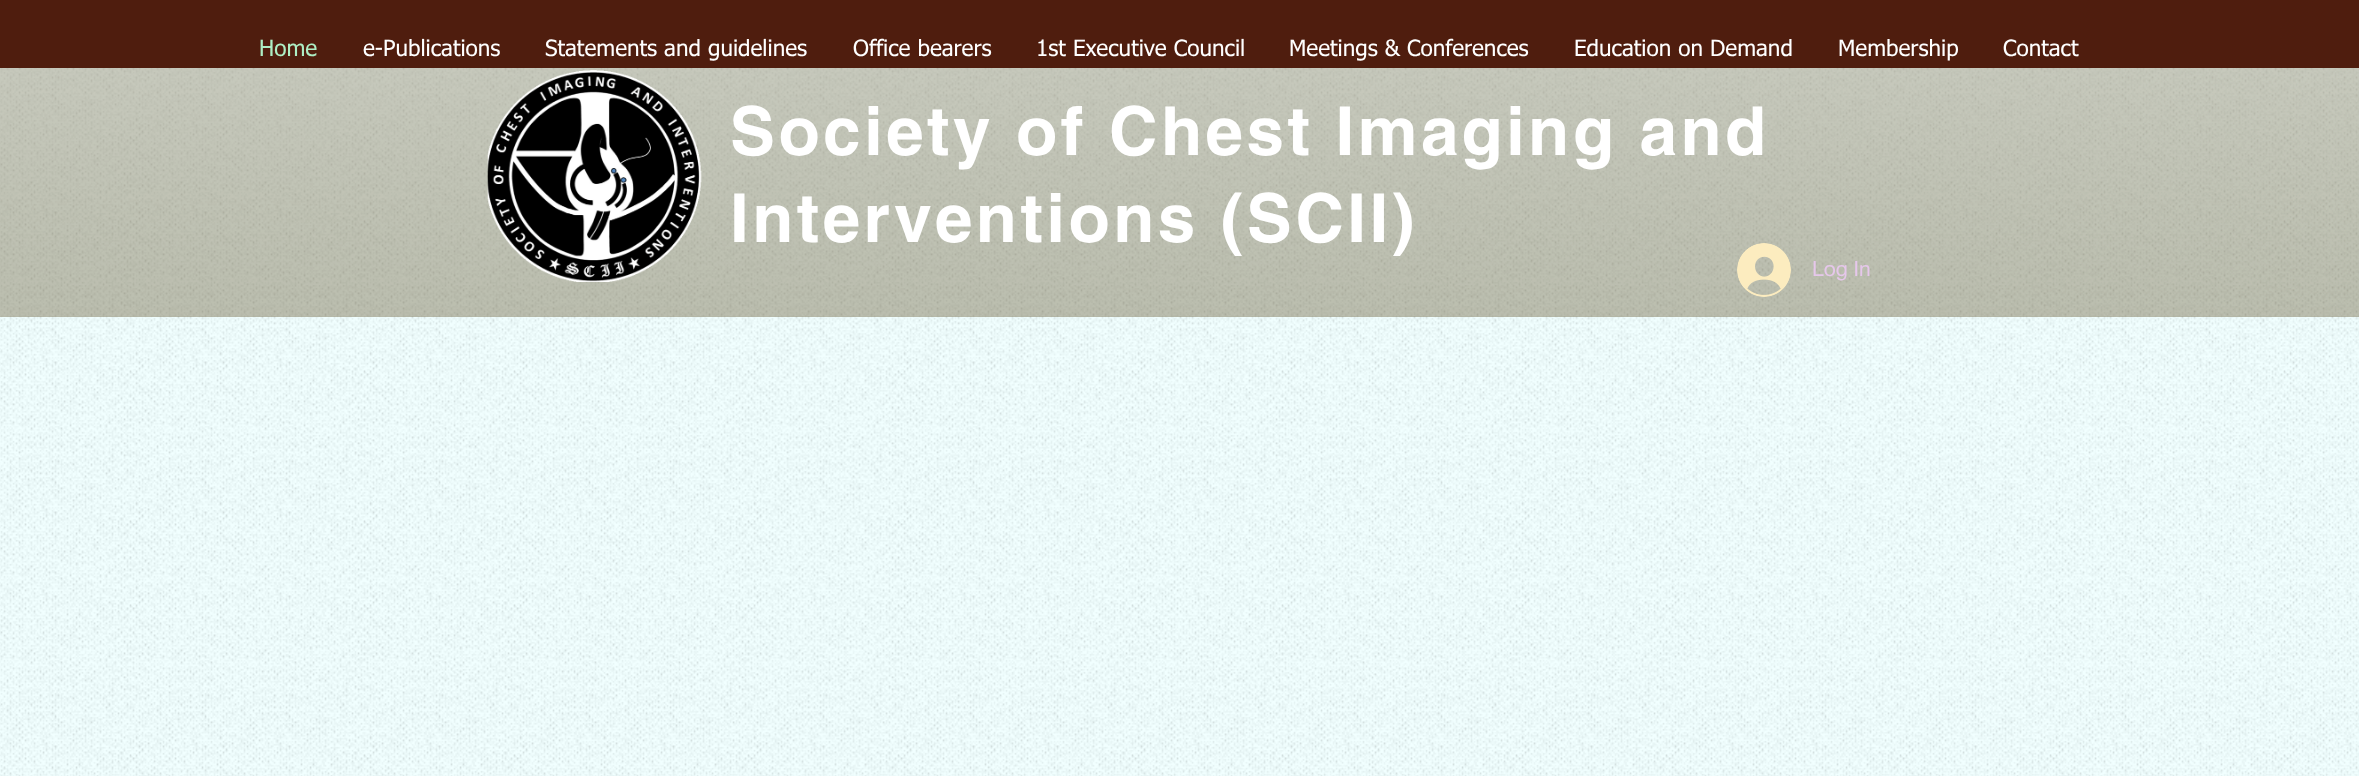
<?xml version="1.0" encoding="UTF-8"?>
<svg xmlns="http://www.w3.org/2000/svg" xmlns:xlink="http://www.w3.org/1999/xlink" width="2359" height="776">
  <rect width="100%" height="100%" fill="#f1ffff" />
  <rect width="2359" height="68" fill="#4f1d0e" />
  <image x="0" y="68" width="2359" height="708" xlink:href="image4.png" />
  <rect y="68" width="2359" height="249" fill="#524217" fill-opacity="0.36" />
  <image x="0" y="68" width="2359" height="248" xlink:href="image3.png" />
  <image x="487" y="70" width="215" height="212" xlink:href="image1.png" />
  <image x="1737" y="243" width="54" height="54" xlink:href="image2.png" />
  <text x="259" y="56" style="font-family: tahoma; font-size: 22.5px; fill: #aeefc5">Home</text>
  <text x="363" y="56" style="font-family: tahoma; font-size: 22.5px; fill: #ffffff">e-Publications</text>
  <text x="545" y="56" style="font-family: tahoma; font-size: 22.5px; fill: #ffffff">Statements and guidelines</text>
  <text x="853" y="56" style="font-family: tahoma; font-size: 22.5px; fill: #ffffff">Office bearers</text>
  <text x="1036" y="56" style="font-family: tahoma; font-size: 22.5px; fill: #ffffff">1st Executive Council</text>
  <text x="1289" y="56" style="font-family: tahoma; font-size: 22.5px; fill: #ffffff">Meetings &amp; Conferences</text>
  <text x="1574" y="56" style="font-family: tahoma; font-size: 22.5px; fill: #ffffff">Education on Demand</text>
  <text x="1838" y="56" style="font-family: tahoma; font-size: 22.5px; fill: #ffffff">Membership</text>
  <text x="2003" y="56" style="font-family: tahoma; font-size: 22.5px; fill: #ffffff">Contact</text>
  <text x="730" y="155" style="font-family: helvetica; font-size: 67.5px; font-weight: bold; letter-spacing: 3.4px; fill: #ffffff">Society of Chest Imaging and</text>
  <text x="730" y="242" style="font-family: helvetica; font-size: 67.5px; font-weight: bold; letter-spacing: 3.4px; fill: #ffffff">Interventions (SCII)</text>
  <text x="1812" y="276" style="font-family: helvetica neue; font-size: 21px; fill: #e6c7eb">Log In</text>
</svg>
